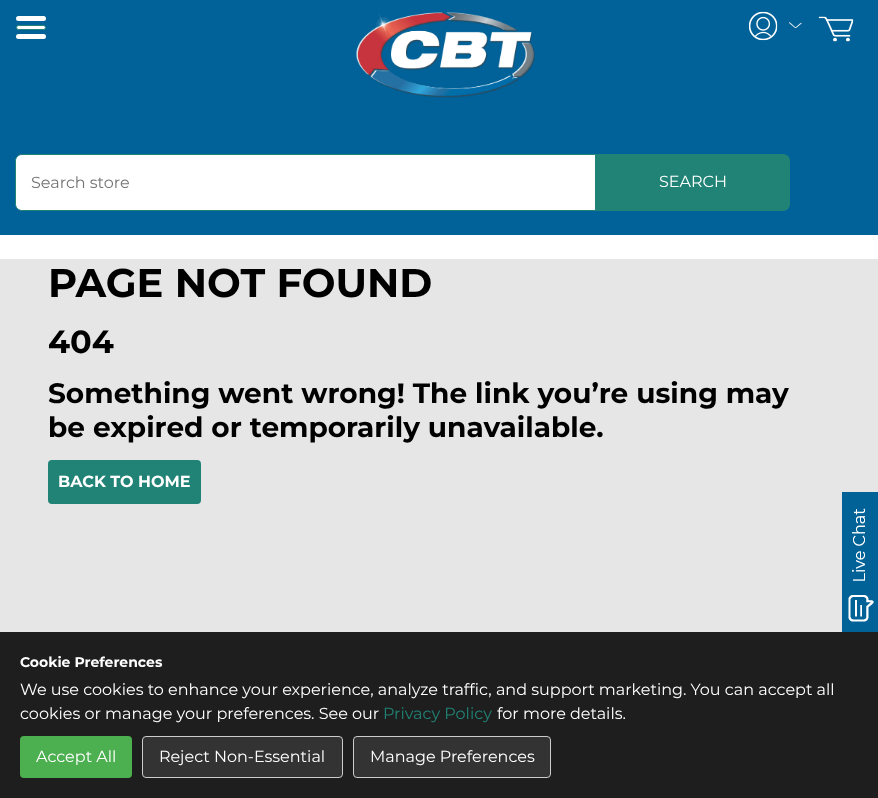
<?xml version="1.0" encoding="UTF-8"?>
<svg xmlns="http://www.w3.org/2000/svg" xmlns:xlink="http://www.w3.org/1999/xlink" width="878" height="798">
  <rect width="100%" height="100%" fill="#ffffff" />
  <rect width="878" height="235" fill="#006298" />
  <rect x="16" y="16" width="30" height="5" rx="2.5" fill="#ffffff" />
  <rect x="16.5" y="25.5" width="29" height="4" rx="2" fill="#ffffff" stroke="#218376" />
  <rect x="16" y="34" width="30" height="5" rx="2.5" fill="#ffffff" />
  <image x="356" y="12" width="179" height="86" xlink:href="image1.png" />
  <image x="749" y="11" width="29" height="30" xlink:href="image2.png" />
  <image x="789" y="22" width="13" height="6" xlink:href="image3.png" />
  <image x="818" y="16" width="36" height="26" xlink:href="image4.png" />
  <path d="M 22 154.5 h 573.5 v 56 h -573.5 c -3.5 0 -6.5 -3 -6.5 -6.5 v -43 c 0 -3.5 3 -6.5 6.5 -6.5 z" fill="#ffffff" stroke="#218376" />
  <path d="M 596 154 h 187 c 4 0 7 3 7 7 v 43 c 0 4 -3 7 -7 7 h -187 z" fill="#218376" />
  <rect y="259" width="878" height="373" fill="#e6e6e6" />
  <rect x="48" y="460" width="153" height="44" rx="4" fill="#218376" />
  <image x="842" y="492" width="36" height="140" xlink:href="image5.png" />
  <rect y="632" width="878" height="166" fill="#1e1e1e" />
  <rect x="20" y="736" width="112" height="42" rx="4" fill="#4caf50" />
  <rect x="142.5" y="736.5" width="200" height="41" rx="3.5" fill="#333333" stroke="#cccccc" />
  <rect x="353.5" y="736.5" width="197" height="41" rx="3.5" fill="#333333" stroke="#cccccc" />
  <text x="31" y="188" style="font-family: Montserrat; font-size: 16px; fill: #757575">Search store</text>
  <text x="659" y="187" style="font-family: Montserrat; font-size: 16px; fill: #ffffff">SEARCH</text>
  <text x="48" y="297" style="font-family: Montserrat; font-size: 40px; font-weight: bold; fill: #000000">PAGE NOT FOUND</text>
  <text x="48" y="353" style="font-family: Montserrat; font-size: 32px; font-weight: bold; fill: #000000">404</text>
  <text x="48" y="403" style="font-family: Montserrat; font-size: 28px; font-weight: bold; fill: #000000">Something went wrong! The link you’re using may</text>
  <text x="48" y="437" style="font-family: Montserrat; font-size: 28px; font-weight: bold; fill: #000000">be expired or temporarily unavailable.</text>
  <text x="58" y="487" style="font-family: Montserrat; font-size: 16px; font-weight: bold; fill: #ffffff">BACK TO HOME</text>
  <text x="20" y="667" style="font-family: Montserrat; font-size: 14px; font-weight: bold; fill: #ffffff">Cookie Preferences</text>
  <text x="20" y="695" style="font-family: Montserrat; font-size: 16px; fill: #ffffff">We use cookies to enhance your experience, analyze traffic, and support marketing. You can accept all</text>
  <text x="20" y="719" style="font-family: Montserrat; font-size: 16px; fill: #ffffff">cookies or manage your preferences. See our</text>
  <text x="383" y="719" style="font-family: Montserrat; font-size: 16px; fill: #218376">Privacy Policy</text>
  <text x="497" y="719" style="font-family: Montserrat; font-size: 16px; fill: #ffffff">for more details.</text>
  <text x="36" y="762" style="font-family: Montserrat; font-size: 16px; fill: #ffffff">Accept All</text>
  <text x="159" y="762" style="font-family: Montserrat; font-size: 16px; fill: #ffffff">Reject Non-Essential</text>
  <text x="370" y="762" style="font-family: Montserrat; font-size: 16px; fill: #ffffff">Manage Preferences</text>
</svg>
